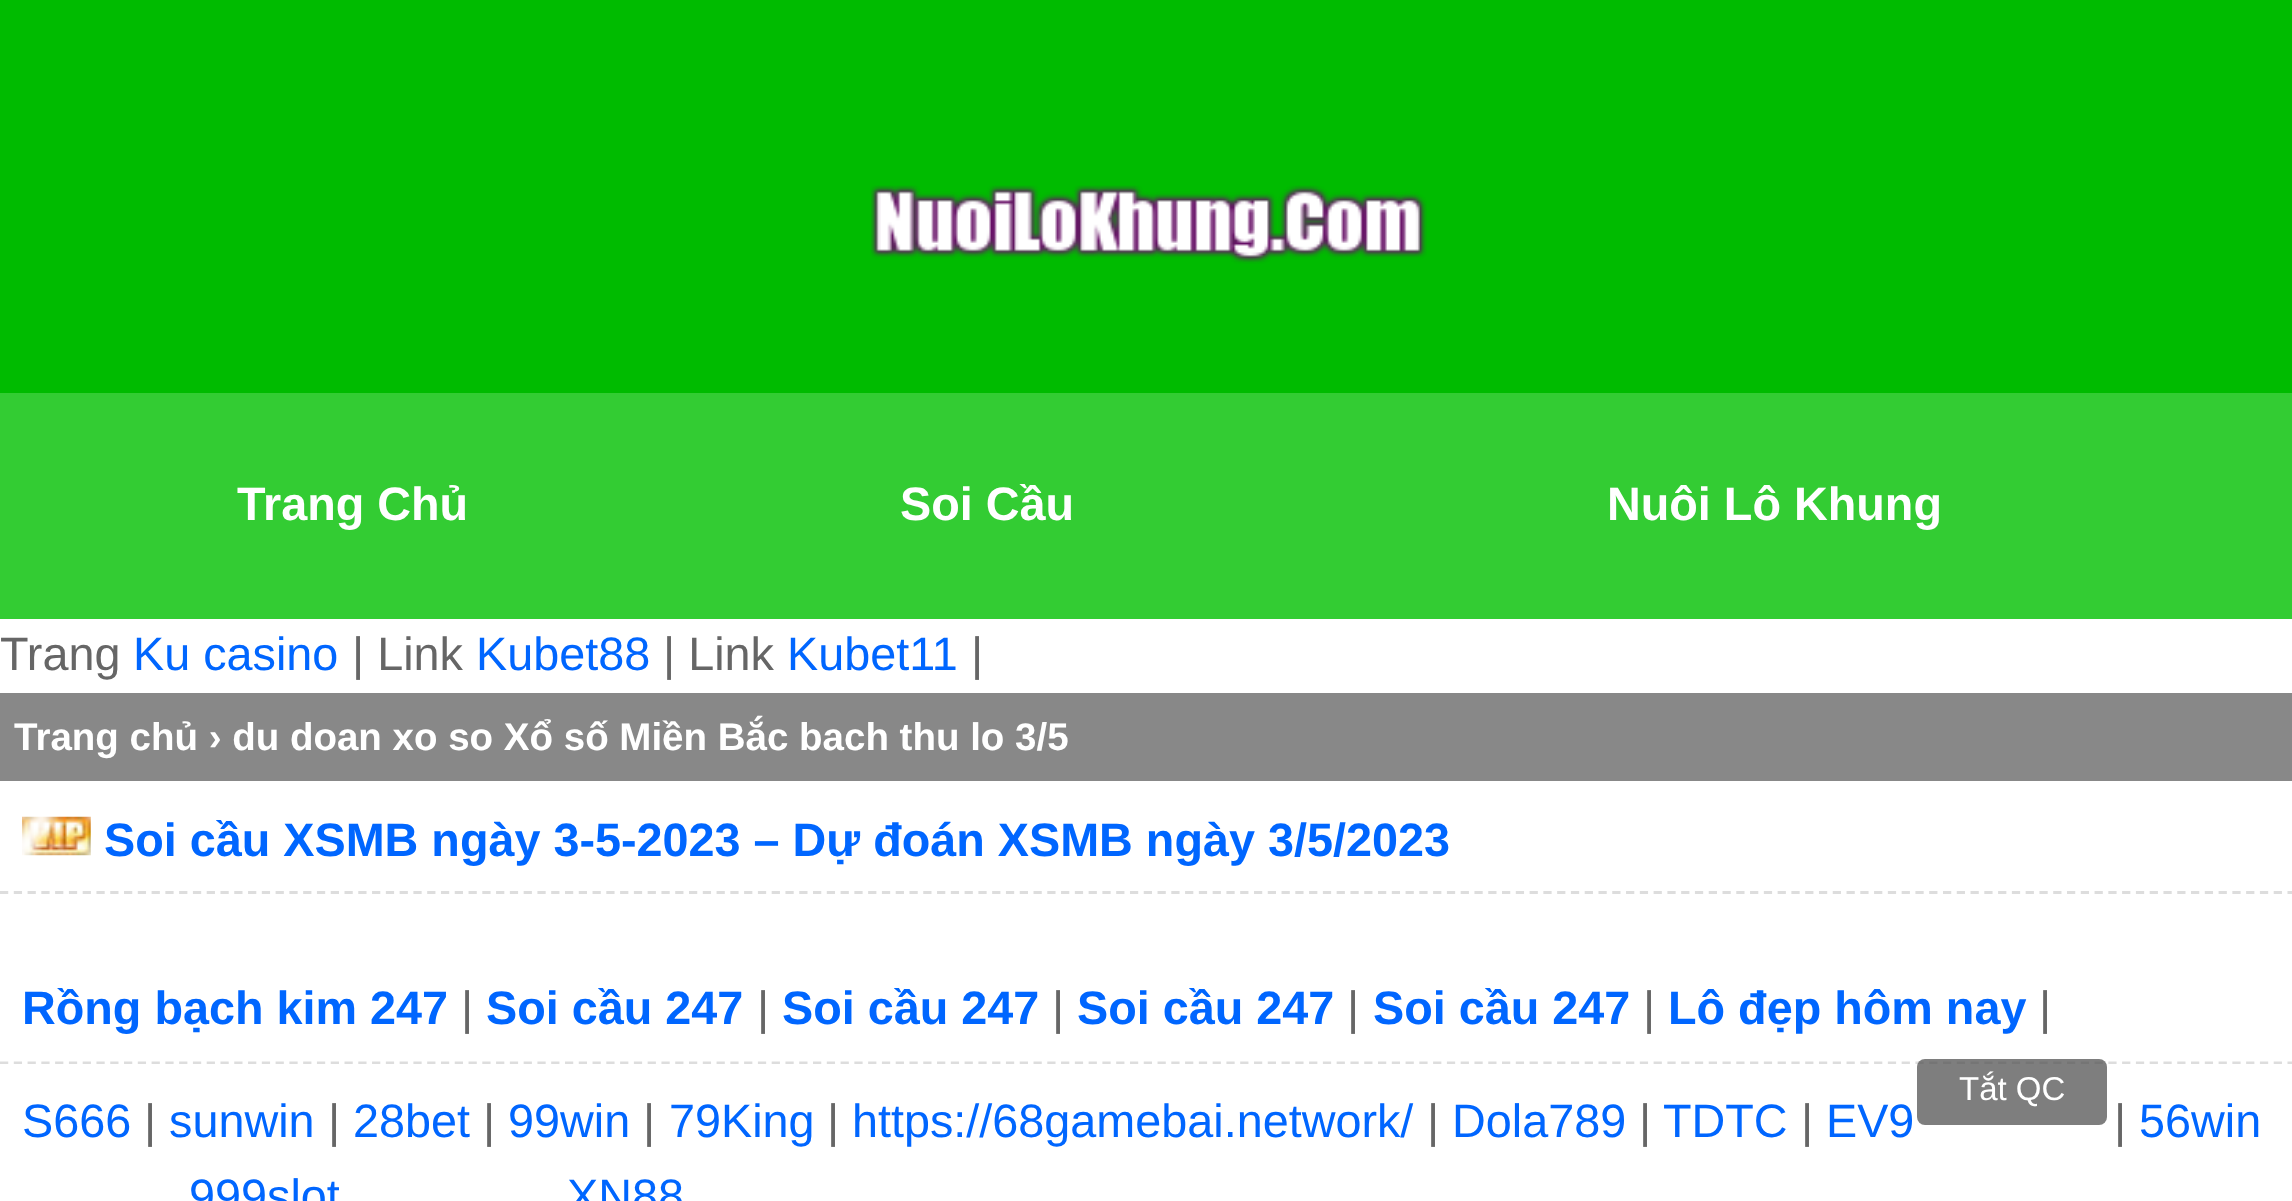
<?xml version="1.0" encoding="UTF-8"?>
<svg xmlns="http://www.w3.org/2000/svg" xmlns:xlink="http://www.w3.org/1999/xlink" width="2292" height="1201">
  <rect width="100%" height="100%" fill="#ffffff" />
  <rect width="2292" height="393" fill="#00bb00" />
  <image x="870" y="185" width="557" height="79" xlink:href="image1.png" />
  <rect y="393" width="2292" height="226" fill="#33cc33" />
  <rect y="693" width="2292" height="88" fill="#888888" />
  <path d="M 0 892.5 h 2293.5" fill="none" stroke="#dddddd" stroke-width="2.8" stroke-dasharray="8.25 5.53" />
  <image x="22" y="816" width="69" height="40" xlink:href="image2.png" />
  <path d="M 0 1063 h 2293.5" fill="none" stroke="#dddddd" stroke-width="2.8" stroke-dasharray="8.25 5.53" />
  <rect y="1064" width="2292" height="1" fill="#ffffff" />
  <rect x="1917" y="1059" width="190" height="66" rx="8" fill="#4e4e4e" fill-opacity="0.73" />
  <text x="237" y="520" style="font-family: Liberation Sans; font-size: 46.75px; font-weight: bold; fill: #ffffff">Trang Chủ</text>
  <text x="900" y="520" style="font-family: Liberation Sans; font-size: 46.75px; font-weight: bold; fill: #ffffff">Soi Cầu</text>
  <text x="1607" y="520" style="font-family: Liberation Sans; font-size: 46.75px; font-weight: bold; fill: #ffffff">Nuôi Lô Khung</text>
  <text x="0" y="670" style="font-family: Liberation Sans; font-size: 46.75px; fill: #666666">Trang</text>
  <text x="133" y="670" style="font-family: Liberation Sans; font-size: 46.75px; fill: #0066ff">Ku casino</text>
  <text x="352" y="670" style="font-family: Liberation Sans; font-size: 46.75px; fill: #666666">| Link</text>
  <text x="476" y="670" style="font-family: Liberation Sans; font-size: 46.75px; fill: #0066ff">Kubet88</text>
  <text x="663" y="670" style="font-family: Liberation Sans; font-size: 46.75px; fill: #666666">| Link</text>
  <text x="787" y="670" style="font-family: Liberation Sans; font-size: 46.75px; fill: #0066ff">Kubet11</text>
  <text x="971" y="670" style="font-family: Liberation Sans; font-size: 46.75px; fill: #666666">|</text>
  <text x="14" y="750" style="font-family: Liberation Sans; font-size: 38.5px; font-weight: bold; fill: #ffffff">Trang chủ › du doan xo so Xổ số Miền Bắc bach thu lo 3/5</text>
  <text x="104" y="856" style="font-family: Liberation Sans; font-size: 46.75px; font-weight: bold; fill: #0066ff">Soi cầu XSMB ngày 3-5-2023 – Dự đoán XSMB ngày 3/5/2023</text>
  <text x="22" y="1024" style="font-family: Liberation Sans; font-size: 46.75px; font-weight: bold; fill: #0066ff">Rồng bạch kim 247</text>
  <text x="461" y="1024" style="font-family: Liberation Sans; font-size: 46.75px; fill: #666666">|</text>
  <text x="486" y="1024" style="font-family: Liberation Sans; font-size: 46.75px; font-weight: bold; fill: #0066ff">Soi cầu 247</text>
  <text x="757" y="1024" style="font-family: Liberation Sans; font-size: 46.75px; fill: #666666">|</text>
  <text x="782" y="1024" style="font-family: Liberation Sans; font-size: 46.75px; font-weight: bold; fill: #0066ff">Soi cầu 247</text>
  <text x="1052" y="1024" style="font-family: Liberation Sans; font-size: 46.75px; fill: #666666">|</text>
  <text x="1077" y="1024" style="font-family: Liberation Sans; font-size: 46.75px; font-weight: bold; fill: #0066ff">Soi cầu 247</text>
  <text x="1347" y="1024" style="font-family: Liberation Sans; font-size: 46.75px; fill: #666666">|</text>
  <text x="1373" y="1024" style="font-family: Liberation Sans; font-size: 46.75px; font-weight: bold; fill: #0066ff">Soi cầu 247</text>
  <text x="1643" y="1024" style="font-family: Liberation Sans; font-size: 46.75px; fill: #666666">|</text>
  <text x="1668" y="1024" style="font-family: Liberation Sans; font-size: 46.75px; font-weight: bold; fill: #0066ff">Lô đẹp hôm nay</text>
  <text x="2039" y="1024" style="font-family: Liberation Sans; font-size: 46.75px; fill: #666666">|</text>
  <text x="1959" y="1100" style="font-family: Liberation Sans; font-size: 33px; fill: #ffffff">Tắt QC</text>
  <text x="22" y="1137" style="font-family: Liberation Sans; font-size: 46.75px; fill: #0066ff">S666</text>
  <text x="144" y="1137" style="font-family: Liberation Sans; font-size: 46.75px; fill: #666666">|</text>
  <text x="169" y="1137" style="font-family: Liberation Sans; font-size: 46.75px; fill: #0066ff">sunwin</text>
  <text x="328" y="1137" style="font-family: Liberation Sans; font-size: 46.75px; fill: #666666">|</text>
  <text x="353" y="1137" style="font-family: Liberation Sans; font-size: 46.75px; fill: #0066ff">28bet</text>
  <text x="483" y="1137" style="font-family: Liberation Sans; font-size: 46.75px; fill: #666666">|</text>
  <text x="508" y="1137" style="font-family: Liberation Sans; font-size: 46.75px; fill: #0066ff">99win</text>
  <text x="643" y="1137" style="font-family: Liberation Sans; font-size: 46.75px; fill: #666666">|</text>
  <text x="669" y="1137" style="font-family: Liberation Sans; font-size: 46.75px; fill: #0066ff">79King</text>
  <text x="827" y="1137" style="font-family: Liberation Sans; font-size: 46.75px; fill: #666666">|</text>
  <text x="852" y="1137" style="font-family: Liberation Sans; font-size: 46.75px; fill: #0066ff">https://68gamebai.network/</text>
  <text x="1427" y="1137" style="font-family: Liberation Sans; font-size: 46.75px; fill: #666666">|</text>
  <text x="1452" y="1137" style="font-family: Liberation Sans; font-size: 46.75px; fill: #0066ff">Dola789</text>
  <text x="1639" y="1137" style="font-family: Liberation Sans; font-size: 46.75px; fill: #666666">|</text>
  <text x="1663" y="1137" style="font-family: Liberation Sans; font-size: 46.75px; fill: #0066ff">TDTC</text>
  <text x="1801" y="1137" style="font-family: Liberation Sans; font-size: 46.75px; fill: #666666">|</text>
  <text x="1826" y="1137" style="font-family: Liberation Sans; font-size: 46.75px; fill: #0066ff">EV9</text>
  <text x="2114" y="1137" style="font-family: Liberation Sans; font-size: 46.75px; fill: #666666">|</text>
  <text x="2139" y="1137" style="font-family: Liberation Sans; font-size: 46.75px; fill: #0066ff">56win</text>
  <text x="189" y="1212" style="font-family: Liberation Sans; font-size: 46.75px; fill: #0066ff">999slot</text>
  <text x="567" y="1212" style="font-family: Liberation Sans; font-size: 46.75px; fill: #0066ff">XN88</text>
</svg>
